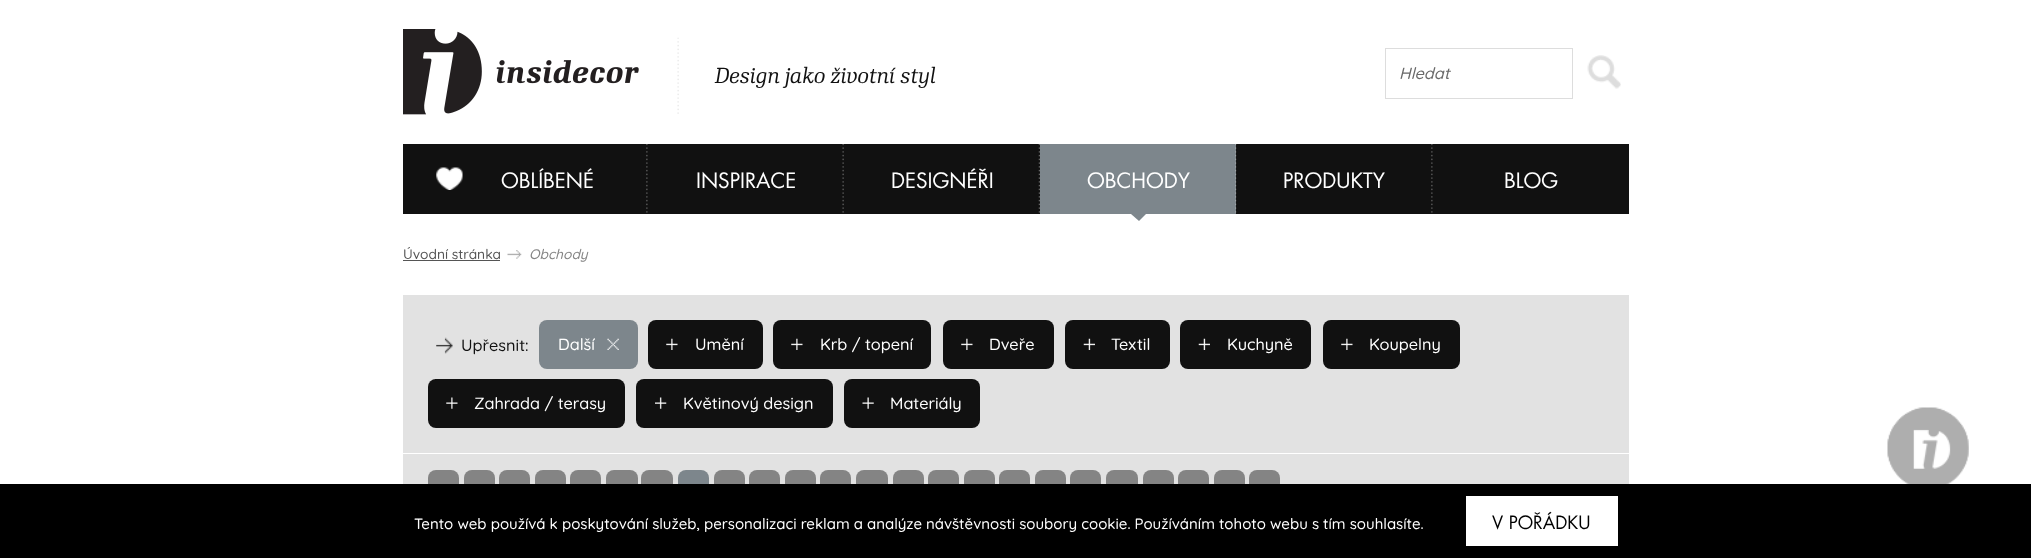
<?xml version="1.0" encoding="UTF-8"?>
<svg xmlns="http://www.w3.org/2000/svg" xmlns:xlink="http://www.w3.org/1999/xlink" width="2031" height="558">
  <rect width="100%" height="100%" fill="#ffffff" />
  <image x="403" y="29" width="236" height="86" xlink:href="image1.png" />
  <image x="677" y="37" width="2" height="77" xlink:href="image2.png" />
  <rect x="1385.5" y="48.5" width="187" height="50" fill="none" stroke="#dddddd" />
  <image x="1587" y="55" width="34" height="34" xlink:href="image3.png" />
  <rect x="403" y="144" width="1226" height="70" fill="#111111" />
  <image x="646" y="144" width="2" height="69" xlink:href="image4.png" />
  <image x="436" y="167" width="27" height="23" xlink:href="image5.png" />
  <image x="842" y="144" width="2" height="69" xlink:href="image6.png" />
  <image x="1038" y="144" width="2" height="69" xlink:href="image7.png" />
  <rect x="1040" y="144" width="196" height="70" fill="#7d868c" />
  <image x="1235" y="144" width="2" height="69" xlink:href="image8.png" />
  <path d="M 1131 214 h 15 l -7 7 z" fill="#7d868c" />
  <image x="1431" y="144" width="2" height="69" xlink:href="image4.png" />
  <rect x="403" y="260" width="97" height="1" fill="#555555" />
  <image x="507" y="250" width="15" height="9" xlink:href="image9.png" />
  <rect x="403" y="295" width="1226" height="158" fill="#e2e2e2" />
  <image x="436" y="337" width="17" height="17" xlink:href="image10.png" />
  <rect x="539" y="320" width="99" height="49" rx="8" fill="#7d868c" />
  <image x="607" y="338" width="12" height="12" xlink:href="image11.png" />
  <rect x="648" y="320" width="115" height="49" rx="8" fill="#111111" />
  <image x="666" y="338" width="12" height="12" xlink:href="image12.png" />
  <rect x="773" y="320" width="158" height="49" rx="8" fill="#111111" />
  <image x="791" y="338" width="12" height="12" xlink:href="image12.png" />
  <rect x="943" y="320" width="111" height="49" rx="8" fill="#111111" />
  <image x="961" y="338" width="12" height="12" xlink:href="image12.png" />
  <rect x="1065" y="320" width="105" height="49" rx="8" fill="#111111" />
  <image x="1083" y="338" width="12" height="12" xlink:href="image13.png" />
  <rect x="1180" y="320" width="131" height="49" rx="8" fill="#111111" />
  <image x="1198" y="338" width="12" height="12" xlink:href="image13.png" />
  <rect x="1323" y="320" width="137" height="49" rx="8" fill="#111111" />
  <image x="1341" y="338" width="12" height="12" xlink:href="image12.png" />
  <rect x="428" y="379" width="197" height="49" rx="8" fill="#111111" />
  <image x="446" y="397" width="12" height="12" xlink:href="image14.png" />
  <rect x="636" y="379" width="197" height="49" rx="8" fill="#111111" />
  <image x="655" y="397" width="12" height="12" xlink:href="image15.png" />
  <rect x="844" y="379" width="136" height="49" rx="8" fill="#111111" />
  <image x="862" y="397" width="12" height="12" xlink:href="image16.png" />
  <rect x="403" y="454" width="1226" height="30" fill="#e2e2e2" />
  <rect x="428" y="470" width="31" height="33" rx="8" fill="#848484" />
  <rect x="464" y="470" width="31" height="33" rx="8" fill="#848484" />
  <rect x="499" y="470" width="31" height="33" rx="8" fill="#848484" />
  <rect x="535" y="470" width="31" height="33" rx="8" fill="#848484" />
  <rect x="570" y="470" width="31" height="33" rx="8" fill="#848484" />
  <rect x="606" y="470" width="32" height="33" rx="8" fill="#848484" />
  <rect x="641" y="470" width="32" height="33" rx="8" fill="#848484" />
  <rect x="678" y="470" width="31" height="33" rx="8" fill="#7d868c" />
  <rect x="714" y="470" width="31" height="33" rx="8" fill="#848484" />
  <rect x="749" y="470" width="31" height="33" rx="8" fill="#848484" />
  <rect x="785" y="470" width="31" height="33" rx="8" fill="#848484" />
  <rect x="820" y="470" width="31" height="33" rx="8" fill="#848484" />
  <rect x="856" y="470" width="32" height="33" rx="8" fill="#848484" />
  <rect x="893" y="470" width="31" height="33" rx="8" fill="#848484" />
  <rect x="928" y="470" width="31" height="33" rx="8" fill="#848484" />
  <rect x="964" y="470" width="31" height="33" rx="8" fill="#848484" />
  <rect x="999" y="470" width="31" height="33" rx="8" fill="#848484" />
  <rect x="1035" y="470" width="31" height="33" rx="8" fill="#848484" />
  <rect x="1070" y="470" width="31" height="33" rx="8" fill="#848484" />
  <rect x="1106" y="470" width="32" height="33" rx="8" fill="#848484" />
  <rect x="1143" y="470" width="31" height="33" rx="8" fill="#848484" />
  <rect x="1178" y="470" width="31" height="33" rx="8" fill="#848484" />
  <rect x="1214" y="470" width="31" height="33" rx="8" fill="#848484" />
  <rect x="1249" y="470" width="31" height="33" rx="8" fill="#848484" />
  <image x="1887" y="407" width="82" height="77" xlink:href="image17.png" />
  <rect y="484" width="2031" height="74" fill="#000000" />
  <rect x="1466" y="496" width="152" height="50" fill="#ffffff" />
  <text x="715" y="83" style="font-family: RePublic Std; font-size: 21.1px; font-style: italic; fill: #111111">Design jako životní styl</text>
  <text x="1399" y="79" style="font-family: Quicksand; font-size: 16.25px; font-weight: 500; font-style: italic; fill: #696969">Hledat</text>
  <text x="501" y="188" style="font-family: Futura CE; font-size: 18.75px; fill: #ffffff">OBLÍBENÉ</text>
  <text x="696" y="188" style="font-family: Futura CE; font-size: 18.75px; fill: #ffffff">INSPIRACE</text>
  <text x="891" y="188" style="font-family: Futura CE; font-size: 18.75px; fill: #ffffff">DESIGNÉŘI</text>
  <text x="1087" y="188" style="font-family: Futura CE; font-size: 18.75px; fill: #ffffff">OBCHODY</text>
  <text x="1283" y="188" style="font-family: Futura CE; font-size: 18.75px; fill: #ffffff">PRODUKTY</text>
  <text x="1504" y="188" style="font-family: Futura CE; font-size: 18.75px; fill: #ffffff">BLOG</text>
  <text x="403" y="259" style="font-family: Quicksand; font-size: 13.75px; font-weight: 500; fill: #555555">Úvodní stránka</text>
  <text x="529" y="259" style="font-family: Quicksand; font-size: 13.75px; font-weight: 500; font-style: italic; fill: #848484">Obchody</text>
  <text x="461" y="351" style="font-family: Quicksand; font-size: 16.25px; font-weight: 500; fill: #111111">Upřesnit:</text>
  <text x="558" y="350" style="font-family: Quicksand; font-size: 16.25px; font-weight: 500; fill: #ffffff">Další</text>
  <text x="695" y="350" style="font-family: Quicksand; font-size: 16.25px; font-weight: 500; fill: #ffffff">Umění</text>
  <text x="820" y="350" style="font-family: Quicksand; font-size: 16.25px; font-weight: 500; fill: #ffffff">Krb / topení</text>
  <text x="989" y="350" style="font-family: Quicksand; font-size: 16.25px; font-weight: 500; fill: #ffffff">Dveře</text>
  <text x="1111" y="350" style="font-family: Quicksand; font-size: 16.25px; font-weight: 500; fill: #ffffff">Textil</text>
  <text x="1227" y="350" style="font-family: Quicksand; font-size: 16.25px; font-weight: 500; fill: #ffffff">Kuchyně</text>
  <text x="1369" y="350" style="font-family: Quicksand; font-size: 16.25px; font-weight: 500; fill: #ffffff">Koupelny</text>
  <text x="474" y="409" style="font-family: Quicksand; font-size: 16.25px; font-weight: 500; fill: #ffffff">Zahrada / terasy</text>
  <text x="683" y="409" style="font-family: Quicksand; font-size: 16.25px; font-weight: 500; fill: #ffffff">Květinový design</text>
  <text x="890" y="409" style="font-family: Quicksand; font-size: 16.25px; font-weight: 500; fill: #ffffff">Materiály</text>
  <text x="414" y="529" style="font-family: Quicksand; font-size: 15px; font-weight: 500; fill: #ffffff">Tento web používá k poskytování služeb, personalizaci reklam a analýze návštěvnosti soubory cookie. Používáním tohoto webu s tím souhlasíte.</text>
  <text x="1492" y="529" style="font-family: Futura CE; font-size: 16.25px; fill: #000000">V POŘÁDKU</text>
</svg>
